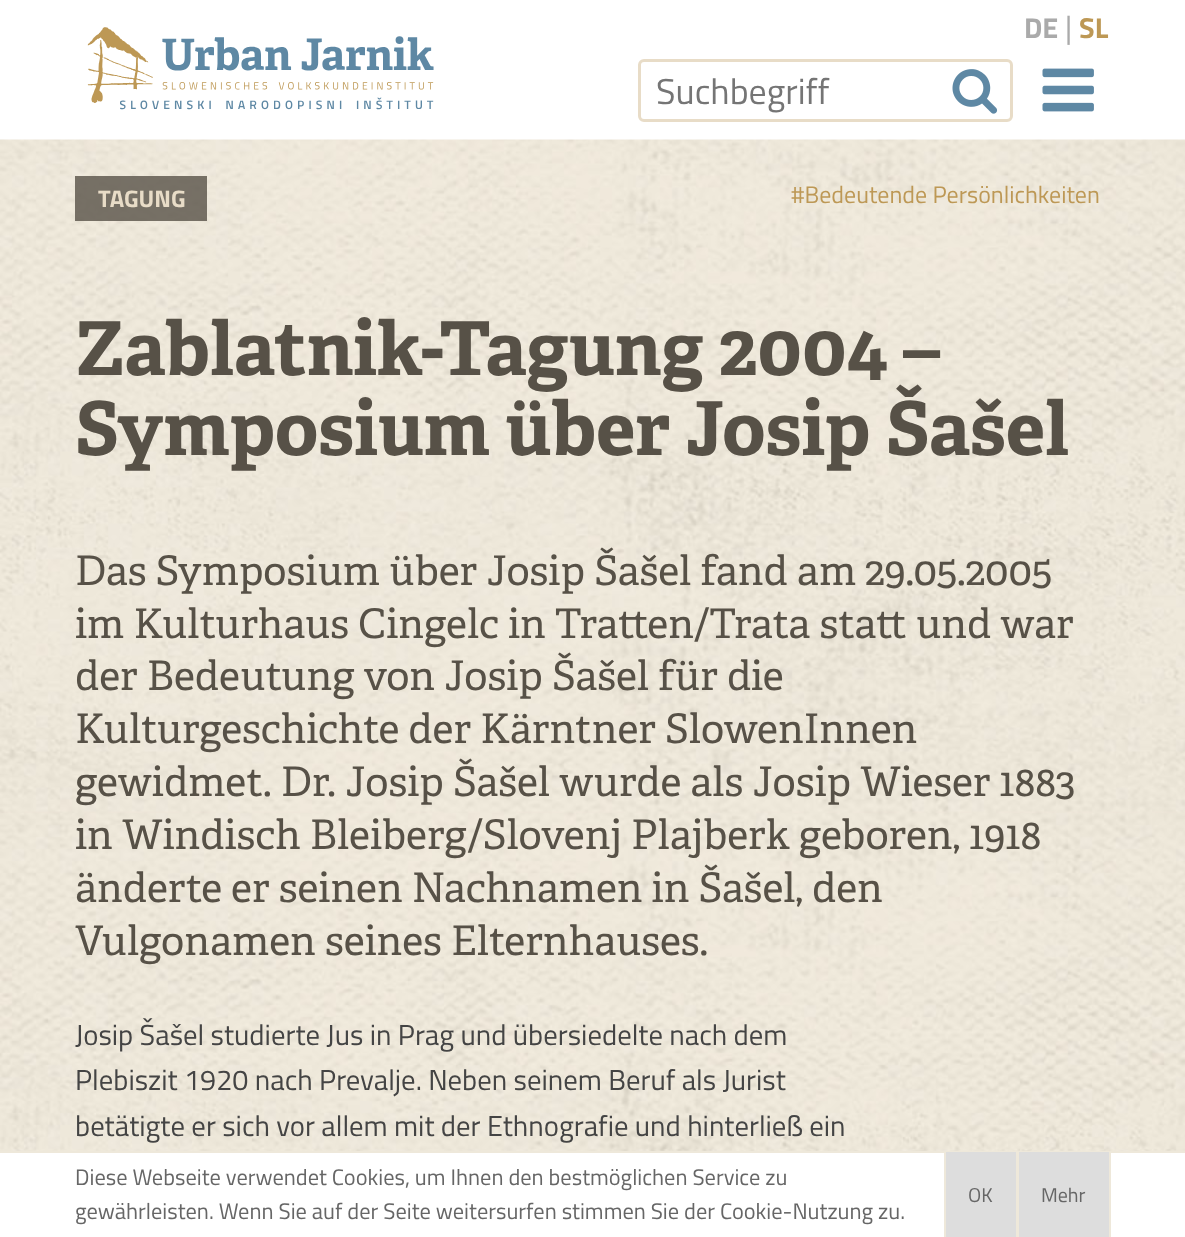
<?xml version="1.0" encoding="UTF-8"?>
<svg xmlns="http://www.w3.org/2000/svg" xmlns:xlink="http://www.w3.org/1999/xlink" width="1185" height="1237">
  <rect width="100%" height="100%" fill="#ffffff" />
  <image x="87" y="27" width="347" height="83" xlink:href="image1.png" />
  <rect x="639.5" y="60.5" width="372" height="60" rx="4.5" fill="none" stroke="#e8dcc7" stroke-width="3" />
  <image x="952" y="69" width="46" height="45" xlink:href="image2.png" />
  <image x="1042" y="68" width="52" height="44" xlink:href="image3.png" />
  <image x="0" y="139" width="1185" height="1012" xlink:href="image4.png" />
  <rect x="75" y="176" width="132" height="45" fill="#575147" fill-opacity="0.8" />
  <rect y="1151" width="1185" height="2" fill="#eee8da" />
  <rect x="946" y="1152" width="70" height="85" fill="#dddddd" />
  <rect x="1016" y="1152" width="3" height="85" fill="#eee8da" />
  <rect x="944" y="1152" width="2" height="85" fill="#eee8da" />
  <rect x="1019" y="1152" width="90" height="85" fill="#dddddd" />
  <rect x="1109" y="1152" width="2" height="85" fill="#eee8da" />
  <text x="1024" y="38" style="font-family: Titillium Web; font-size: 28.8px; font-weight: bold; fill: #aaaaaa">DE</text>
  <text x="1065" y="38" style="font-family: Titillium Web; font-size: 31px; fill: #aaaaaa">|</text>
  <text x="1079" y="38" style="font-family: Titillium Web; font-size: 28.8px; font-weight: bold; fill: #bd9855">SL</text>
  <text x="656" y="104" style="font-family: Titillium Web; font-size: 36px; fill: #757575">Suchbegriff</text>
  <text x="98" y="207" style="font-family: Titillium Web; font-size: 24px; font-weight: bold; fill: #e8dcc7">TAGUNG</text>
  <text x="791" y="203" style="font-family: Titillium Web; font-size: 24px; fill: #bd9855">#Bedeutende Persönlichkeiten</text>
  <text x="75" y="375" style="font-family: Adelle; font-size: 74.4px; font-weight: bold; fill: #575147">Zablatnik-Tagung 2004 –</text>
  <text x="75" y="455" style="font-family: Adelle; font-size: 74.4px; font-weight: bold; fill: #575147">Symposium über Josip Šašel</text>
  <text x="75" y="585" style="font-family: Adelle; font-size: 40.8px; fill: #575147">Das Symposium über Josip Šašel fand am 29.05.2005</text>
  <text x="75" y="638" style="font-family: Adelle; font-size: 40.8px; fill: #575147">im Kulturhaus Cingelc in Tratten/Trata statt und war</text>
  <text x="75" y="690" style="font-family: Adelle; font-size: 40.8px; fill: #575147">der Bedeutung von Josip Šašel für die</text>
  <text x="75" y="743" style="font-family: Adelle; font-size: 40.8px; fill: #575147">Kulturgeschichte der Kärntner SlowenInnen</text>
  <text x="75" y="796" style="font-family: Adelle; font-size: 40.8px; fill: #575147">gewidmet. Dr. Josip Šašel wurde als Josip Wieser 1883</text>
  <text x="75" y="849" style="font-family: Adelle; font-size: 40.8px; fill: #575147">in Windisch Bleiberg/Slovenj Plajberk geboren, 1918</text>
  <text x="75" y="902" style="font-family: Adelle; font-size: 40.8px; fill: #575147">änderte er seinen Nachnamen in Šašel, den</text>
  <text x="75" y="955" style="font-family: Adelle; font-size: 40.8px; fill: #575147">Vulgonamen seines Elternhauses.</text>
  <text x="75" y="1045" style="font-family: Titillium Web; font-size: 28.8px; fill: #444444">Josip Šašel studierte Jus in Prag und übersiedelte nach dem</text>
  <text x="75" y="1090" style="font-family: Titillium Web; font-size: 28.8px; fill: #444444">Plebiszit 1920 nach Prevalje. Neben seinem Beruf als Jurist</text>
  <text x="75" y="1136" style="font-family: Titillium Web; font-size: 28.8px; fill: #444444">betätigte er sich vor allem mit der Ethnografie und hinterließ ein</text>
  <text x="75" y="1185" style="font-family: Titillium Web; font-size: 22.45px; fill: #666666">Diese Webseite verwendet Cookies, um Ihnen den bestmöglichen Service zu</text>
  <text x="75" y="1219" style="font-family: Titillium Web; font-size: 22.45px; fill: #666666">gewährleisten. Wenn Sie auf der Seite weitersurfen stimmen Sie der Cookie-Nutzung zu.</text>
  <text x="968" y="1202" style="font-family: Titillium Web; font-size: 20px; fill: #666666">OK</text>
  <text x="1041" y="1202" style="font-family: Titillium Web; font-size: 20px; fill: #666666">Mehr</text>
</svg>
